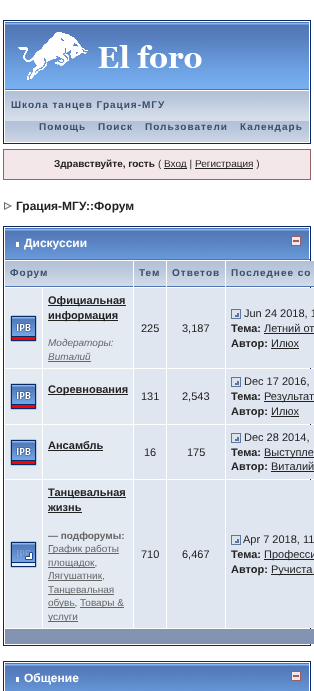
<?xml version="1.0" encoding="UTF-8"?>
<svg xmlns="http://www.w3.org/2000/svg" xmlns:xlink="http://www.w3.org/1999/xlink" width="314" height="691">
  <rect width="100%" height="100%" fill="#ffffff" />
  <rect x="3.5" y="20.5" width="307" height="123" fill="none" stroke="#072a66" />
  <image x="5" y="22" width="304" height="68" xlink:href="image1.png" />
  <image x="18" y="32" width="184" height="48" xlink:href="image2.png" />
  <image x="5" y="91" width="304" height="51" xlink:href="image3.png" />
  <rect x="3.5" y="149.5" width="307" height="30" fill="#f4e7ea" stroke="#986265" />
  <rect x="164" y="168" width="23" height="1" fill="#222222" />
  <rect x="195" y="168" width="58" height="1" fill="#222222" />
  <image x="4" y="202" width="8" height="8" xlink:href="image4.png" />
  <rect x="3.5" y="226.5" width="307" height="419" fill="none" stroke="#072a66" />
  <image x="5" y="228" width="304" height="31" xlink:href="image5.png" />
  <rect x="4" y="259" width="306" height="1" fill="#5176b5" />
  <rect x="4" y="259" width="1" height="1" fill="#ffffff" />
  <rect x="16" y="242" width="3" height="5" fill="#ffffff" />
  <image x="291" y="236" width="10" height="10" xlink:href="image6.png" />
  <image x="5" y="261" width="128" height="25" xlink:href="image7.png" />
  <rect x="5" y="286" width="128" height="1" fill="#5176b5" />
  <image x="134" y="261" width="32" height="25" xlink:href="image8.png" />
  <rect x="134" y="286" width="32" height="1" fill="#5176b5" />
  <image x="167" y="261" width="58" height="25" xlink:href="image9.png" />
  <rect x="167" y="286" width="58" height="1" fill="#5176b5" />
  <image x="226" y="261" width="88" height="25" xlink:href="image10.png" />
  <rect x="226" y="286" width="88" height="1" fill="#5176b5" />
  <rect x="5" y="288" width="37" height="80" fill="#e4eaf2" />
  <image x="10" y="315" width="27" height="27" xlink:href="image11.png" />
  <rect x="43" y="288" width="90" height="80" fill="#e4eaf2" />
  <rect x="48" y="305" width="78" height="1" fill="#222222" />
  <rect x="48" y="320" width="70" height="1" fill="#222222" />
  <rect x="48" y="361" width="43" height="1" fill="#666666" />
  <rect x="134" y="288" width="32" height="80" fill="#dfe6ef" />
  <rect x="167" y="288" width="58" height="80" fill="#dfe6ef" />
  <rect x="226" y="288" width="88" height="80" fill="#dfe6ef" />
  <image x="231" y="309" width="10" height="10" xlink:href="image12.png" />
  <rect x="264" y="333" width="50" height="1" fill="#222222" />
  <rect x="271" y="348" width="28" height="1" fill="#222222" />
  <rect x="5" y="369" width="37" height="55" fill="#e4eaf2" />
  <image x="10" y="383" width="27" height="27" xlink:href="image11.png" />
  <rect x="43" y="369" width="90" height="55" fill="#e4eaf2" />
  <rect x="48" y="394" width="80" height="1" fill="#222222" />
  <rect x="134" y="369" width="32" height="55" fill="#dfe6ef" />
  <rect x="167" y="369" width="58" height="55" fill="#dfe6ef" />
  <rect x="226" y="369" width="88" height="55" fill="#dfe6ef" />
  <image x="231" y="377" width="10" height="10" xlink:href="image12.png" />
  <rect x="264" y="401" width="50" height="1" fill="#222222" />
  <rect x="271" y="416" width="28" height="1" fill="#222222" />
  <rect x="5" y="425" width="37" height="54" fill="#e4eaf2" />
  <image x="10" y="439" width="27" height="27" xlink:href="image11.png" />
  <rect x="43" y="425" width="90" height="54" fill="#e4eaf2" />
  <rect x="48" y="450" width="55" height="1" fill="#222222" />
  <rect x="226" y="425" width="88" height="54" fill="#dfe6ef" />
  <image x="231" y="433" width="10" height="10" xlink:href="image12.png" />
  <rect x="264" y="457" width="50" height="1" fill="#222222" />
  <rect x="271" y="471" width="43" height="1" fill="#222222" />
  <rect x="134" y="425" width="32" height="54" fill="#dfe6ef" />
  <rect x="167" y="425" width="58" height="54" fill="#dfe6ef" />
  <rect x="5" y="480" width="37" height="148" fill="#e4eaf2" />
  <image x="10" y="541" width="27" height="27" xlink:href="image13.png" />
  <rect x="43" y="480" width="90" height="148" fill="#e4eaf2" />
  <rect x="48" y="497" width="78" height="1" fill="#222222" />
  <rect x="48" y="512" width="34" height="1" fill="#222222" />
  <rect x="48" y="553" width="71" height="1" fill="#666666" />
  <rect x="48" y="567" width="47" height="1" fill="#666666" />
  <rect x="48" y="580" width="54" height="1" fill="#666666" />
  <rect x="48" y="594" width="66" height="1" fill="#666666" />
  <rect x="48" y="607" width="27" height="1" fill="#666666" />
  <rect x="80" y="607" width="44" height="1" fill="#666666" />
  <rect x="48" y="621" width="30" height="1" fill="#666666" />
  <rect x="134" y="480" width="32" height="148" fill="#dfe6ef" />
  <rect x="167" y="480" width="58" height="148" fill="#dfe6ef" />
  <rect x="226" y="480" width="88" height="148" fill="#dfe6ef" />
  <image x="231" y="535" width="10" height="10" xlink:href="image12.png" />
  <rect x="264" y="559" width="50" height="1" fill="#222222" />
  <rect x="271" y="574" width="43" height="1" fill="#222222" />
  <rect x="5" y="629" width="309" height="15" fill="#8394b2" />
  <rect x="3.5" y="661.5" width="307" height="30" fill="none" stroke="#072a66" />
  <image x="5" y="663" width="304" height="28" xlink:href="image14.png" />
  <rect x="16" y="677" width="3" height="5" fill="#ffffff" />
  <image x="291" y="671" width="10" height="10" xlink:href="image6.png" />
  <text x="11" y="108" style="font-family: Liberation Sans; font-size: 10px; font-weight: bold; letter-spacing: 1px; fill: #3a4f6c">Школа танцев Грация-МГУ</text>
  <text x="39" y="130" style="font-family: Liberation Sans; font-size: 10px; font-weight: bold; letter-spacing: 1px; fill: #3a4f6c">Помощь</text>
  <text x="98" y="130" style="font-family: Liberation Sans; font-size: 10px; font-weight: bold; letter-spacing: 1px; fill: #3a4f6c">Поиск</text>
  <text x="145" y="130" style="font-family: Liberation Sans; font-size: 10px; font-weight: bold; letter-spacing: 1px; fill: #3a4f6c">Пользователи</text>
  <text x="240" y="130" style="font-family: Liberation Sans; font-size: 10px; font-weight: bold; letter-spacing: 1px; fill: #3a4f6c">Календарь</text>
  <text x="54" y="167" style="font-family: Liberation Sans; font-size: 10px; font-weight: bold; fill: #222222">Здравствуйте, гость</text>
  <text x="158" y="167" style="font-family: Liberation Sans; font-size: 10px; fill: #222222">(</text>
  <text x="164" y="167" style="font-family: Liberation Sans; font-size: 10px; fill: #222222">Вход |</text>
  <text x="195" y="167" style="font-family: Liberation Sans; font-size: 10px; fill: #222222">Регистрация )</text>
  <text x="16" y="210" style="font-family: Liberation Sans; font-size: 12px; font-weight: bold; fill: #222222">Грация-МГУ::Форум</text>
  <text x="24" y="247" style="font-family: Liberation Sans; font-size: 12px; font-weight: bold; fill: #ffffff">Дискуссии</text>
  <text x="10" y="276" style="font-family: Liberation Sans; font-size: 10px; font-weight: bold; letter-spacing: 1px; fill: #3a4f6c">Форум</text>
  <text x="139" y="276" style="font-family: Liberation Sans; font-size: 10px; font-weight: bold; letter-spacing: 1px; fill: #3a4f6c">Тем</text>
  <text x="172" y="276" style="font-family: Liberation Sans; font-size: 10px; font-weight: bold; letter-spacing: 1px; fill: #3a4f6c">Ответов</text>
  <text x="231" y="276" style="font-family: Liberation Sans; font-size: 10px; font-weight: bold; letter-spacing: 1px; fill: #3a4f6c">Последнее со</text>
  <text x="48" y="304" style="font-family: Liberation Sans; font-size: 11px; font-weight: bold; fill: #222222">Официальная</text>
  <text x="48" y="319" style="font-family: Liberation Sans; font-size: 11px; font-weight: bold; fill: #222222">информация</text>
  <text x="48" y="346" style="font-family: Liberation Sans; font-size: 10px; font-style: italic; fill: #666666">Модераторы:</text>
  <text x="48" y="360" style="font-family: Liberation Sans; font-size: 10px; font-style: italic; fill: #666666">Виталий</text>
  <text x="141" y="332" style="font-family: Liberation Sans; font-size: 11px; fill: #222222">225</text>
  <text x="182" y="332" style="font-family: Liberation Sans; font-size: 11px; fill: #222222">3,187</text>
  <text x="244" y="317" style="font-family: Liberation Sans; font-size: 11px; fill: #222222">Jun 24 2018, 1</text>
  <text x="231" y="332" style="font-family: Liberation Sans; font-size: 11px; font-weight: bold; fill: #222222">Тема:</text>
  <text x="264" y="332" style="font-family: Liberation Sans; font-size: 11px; fill: #222222">Летний от</text>
  <text x="231" y="347" style="font-family: Liberation Sans; font-size: 11px; font-weight: bold; fill: #222222">Автор:</text>
  <text x="271" y="347" style="font-family: Liberation Sans; font-size: 11px; fill: #222222">Илюх</text>
  <text x="48" y="393" style="font-family: Liberation Sans; font-size: 11px; font-weight: bold; fill: #222222">Соревнования</text>
  <text x="141" y="400" style="font-family: Liberation Sans; font-size: 11px; fill: #222222">131</text>
  <text x="182" y="400" style="font-family: Liberation Sans; font-size: 11px; fill: #222222">2,543</text>
  <text x="244" y="385" style="font-family: Liberation Sans; font-size: 11px; fill: #222222">Dec 17 2016,</text>
  <text x="231" y="400" style="font-family: Liberation Sans; font-size: 11px; font-weight: bold; fill: #222222">Тема:</text>
  <text x="264" y="400" style="font-family: Liberation Sans; font-size: 11px; fill: #222222">Результат</text>
  <text x="231" y="415" style="font-family: Liberation Sans; font-size: 11px; font-weight: bold; fill: #222222">Автор:</text>
  <text x="271" y="415" style="font-family: Liberation Sans; font-size: 11px; fill: #222222">Илюх</text>
  <text x="48" y="449" style="font-family: Liberation Sans; font-size: 11px; font-weight: bold; fill: #222222">Ансамбль</text>
  <text x="244" y="441" style="font-family: Liberation Sans; font-size: 11px; fill: #222222">Dec 28 2014,</text>
  <text x="231" y="456" style="font-family: Liberation Sans; font-size: 11px; font-weight: bold; fill: #222222">Тема:</text>
  <text x="264" y="456" style="font-family: Liberation Sans; font-size: 11px; fill: #222222">Выступле</text>
  <text x="231" y="470" style="font-family: Liberation Sans; font-size: 11px; font-weight: bold; fill: #222222">Автор:</text>
  <text x="271" y="470" style="font-family: Liberation Sans; font-size: 11px; fill: #222222">Виталий</text>
  <text x="144" y="456" style="font-family: Liberation Sans; font-size: 11px; fill: #222222">16</text>
  <text x="187" y="456" style="font-family: Liberation Sans; font-size: 11px; fill: #222222">175</text>
  <text x="48" y="496" style="font-family: Liberation Sans; font-size: 11px; font-weight: bold; fill: #222222">Танцевальная</text>
  <text x="48" y="511" style="font-family: Liberation Sans; font-size: 11px; font-weight: bold; fill: #222222">жизнь</text>
  <text x="48" y="539" style="font-family: Liberation Sans; font-size: 10px; font-weight: bold; fill: #666666">— подфорумы:</text>
  <text x="48" y="552" style="font-family: Liberation Sans; font-size: 10px; fill: #666666">График работы</text>
  <text x="48" y="566" style="font-family: Liberation Sans; font-size: 10px; fill: #666666">площадок,</text>
  <text x="48" y="579" style="font-family: Liberation Sans; font-size: 10px; fill: #666666">Лягушатник,</text>
  <text x="48" y="593" style="font-family: Liberation Sans; font-size: 10px; fill: #666666">Танцевальная</text>
  <text x="48" y="606" style="font-family: Liberation Sans; font-size: 10px; fill: #666666">обувь,</text>
  <text x="80" y="606" style="font-family: Liberation Sans; font-size: 10px; fill: #666666">Товары &amp;</text>
  <text x="48" y="620" style="font-family: Liberation Sans; font-size: 10px; fill: #666666">услуги</text>
  <text x="141" y="558" style="font-family: Liberation Sans; font-size: 11px; fill: #222222">710</text>
  <text x="182" y="558" style="font-family: Liberation Sans; font-size: 11px; fill: #222222">6,467</text>
  <text x="243" y="543" style="font-family: Liberation Sans; font-size: 11px; fill: #222222">Apr 7 2018, 11</text>
  <text x="231" y="558" style="font-family: Liberation Sans; font-size: 11px; font-weight: bold; fill: #222222">Тема:</text>
  <text x="264" y="558" style="font-family: Liberation Sans; font-size: 11px; fill: #222222">Професси</text>
  <text x="231" y="573" style="font-family: Liberation Sans; font-size: 11px; font-weight: bold; fill: #222222">Автор:</text>
  <text x="271" y="573" style="font-family: Liberation Sans; font-size: 11px; fill: #222222">Ручиста</text>
  <text x="24" y="682" style="font-family: Liberation Sans; font-size: 12px; font-weight: bold; fill: #ffffff">Общение</text>
</svg>
